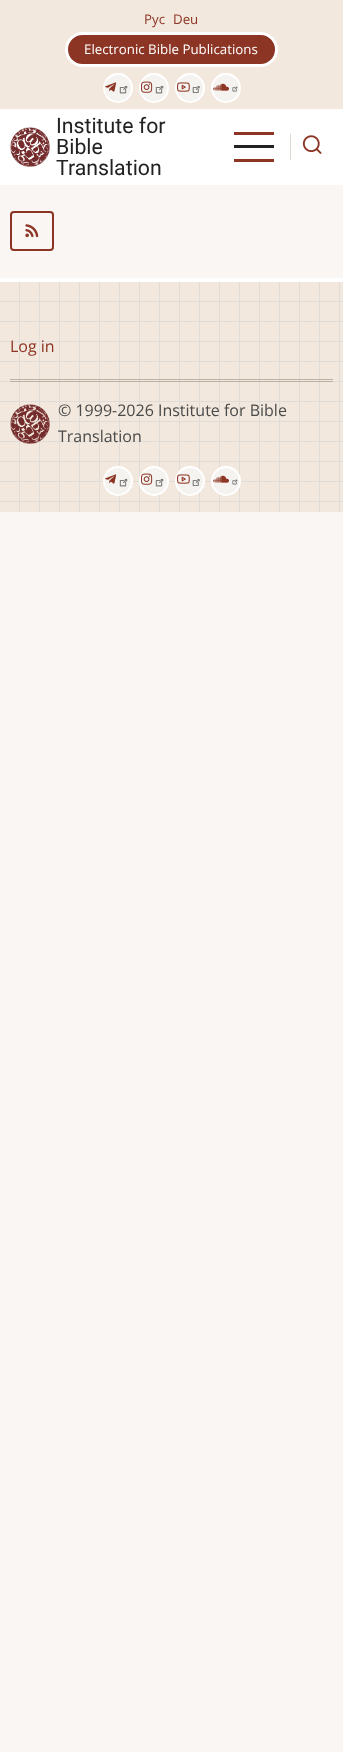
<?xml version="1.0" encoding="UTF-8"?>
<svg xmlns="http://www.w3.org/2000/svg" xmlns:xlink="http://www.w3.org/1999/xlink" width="343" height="1752">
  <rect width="100%" height="100%" fill="#f9f6f3" />
  <rect width="343" height="109" fill="#f2e8dd" />
  <rect x="66.5" y="33.5" width="210" height="32" rx="16" fill="#8d3524" stroke="#ffffff" stroke-width="3" />
  <circle cx="118" cy="88" r="14" fill="#f5f3ef" stroke="#ffffff" stroke-width="2" />
  <image x="105" y="82" width="12" height="10" xlink:href="image1.png" />
  <image x="119" y="85" width="9" height="9" xlink:href="image2.png" />
  <circle cx="154" cy="88" r="14" fill="#f5f3ef" stroke="#ffffff" stroke-width="2" />
  <image x="141" y="81" width="12" height="12" xlink:href="image3.png" />
  <image x="155" y="85" width="9" height="9" xlink:href="image2.png" />
  <circle cx="190" cy="88" r="14" fill="#f5f3ef" stroke="#ffffff" stroke-width="2" />
  <image x="177" y="82" width="13" height="10" xlink:href="image4.png" />
  <image x="192" y="86" width="8" height="7" xlink:href="image5.png" />
  <circle cx="226" cy="88" r="14" fill="#f5f3ef" stroke="#ffffff" stroke-width="2" />
  <image x="213" y="83" width="16" height="8" xlink:href="image6.png" />
  <image x="232" y="86" width="6" height="6" xlink:href="image7.png" />
  <rect y="109" width="343" height="76" fill="#ffffff" />
  <image x="10" y="127" width="40" height="40" xlink:href="image8.png" />
  <rect x="234" y="132" width="40" height="3" fill="#8d3524" />
  <rect x="234" y="145" width="40" height="3" fill="#222222" />
  <rect x="234" y="159" width="40" height="3" fill="#8d3524" />
  <rect x="290" y="134" width="1" height="26" fill="#dbdbd3" />
  <image x="302" y="135" width="20" height="19" xlink:href="image9.png" />
  <rect x="11" y="212" width="42" height="38" rx="3" fill="none" stroke="#8d3524" stroke-width="2" />
  <image x="25" y="224" width="14" height="14" xlink:href="image10.png" />
  <rect y="282" width="343" height="230" fill="#f2e8dd" />
  <image x="0" y="282" width="343" height="230" xlink:href="image11.png" />
  <rect y="278" width="343" height="4" fill="#ffffff" />
  <rect x="10" y="379" width="323" height="1" fill="#bbb0a1" />
  <rect x="10" y="381" width="323" height="1" fill="#bbb0a1" />
  <image x="10" y="404" width="40" height="40" xlink:href="image12.png" />
  <circle cx="118" cy="481" r="14" fill="#f5f3ef" stroke="#ffffff" stroke-width="2" />
  <image x="105" y="474" width="12" height="10" xlink:href="image13.png" />
  <image x="119" y="478" width="9" height="9" xlink:href="image2.png" />
  <circle cx="154" cy="481" r="14" fill="#f5f3ef" stroke="#ffffff" stroke-width="2" />
  <image x="141" y="473" width="12" height="12" xlink:href="image14.png" />
  <image x="155" y="478" width="9" height="9" xlink:href="image2.png" />
  <circle cx="190" cy="481" r="14" fill="#f5f3ef" stroke="#ffffff" stroke-width="2" />
  <image x="177" y="474" width="13" height="10" xlink:href="image15.png" />
  <image x="192" y="479" width="8" height="7" xlink:href="image5.png" />
  <circle cx="226" cy="481" r="14" fill="#f5f3ef" stroke="#ffffff" stroke-width="2" />
  <image x="213" y="475" width="16" height="8" xlink:href="image16.png" />
  <image x="232" y="479" width="6" height="6" xlink:href="image7.png" />
  <text x="144" y="24" style="font-family: Open Sans; font-size: 13.3px; fill: #8d3524">Рус</text>
  <text x="173" y="24" style="font-family: Open Sans; font-size: 13.3px; fill: #8d3524">Deu</text>
  <text x="84" y="54" style="font-family: Open Sans; font-size: 13.3px; fill: #ffffff">Electronic Bible Publications</text>
  <text x="56" y="133" style="font-family: Roboto; font-size: 21.25px; fill: #222222">Institute for</text>
  <text x="56" y="154" style="font-family: Roboto; font-size: 21.25px; fill: #222222">Bible</text>
  <text x="56" y="175" style="font-family: Roboto; font-size: 21.25px; fill: #222222">Translation</text>
  <text x="10" y="352" style="font-family: Open Sans; font-size: 16px; fill: #8d3524">Log in</text>
  <text x="58" y="416" style="font-family: Open Sans; font-size: 16px; fill: #4a4a4a">© 1999-2026 Institute for Bible</text>
  <text x="58" y="442" style="font-family: Open Sans; font-size: 16px; fill: #4a4a4a">Translation</text>
</svg>
